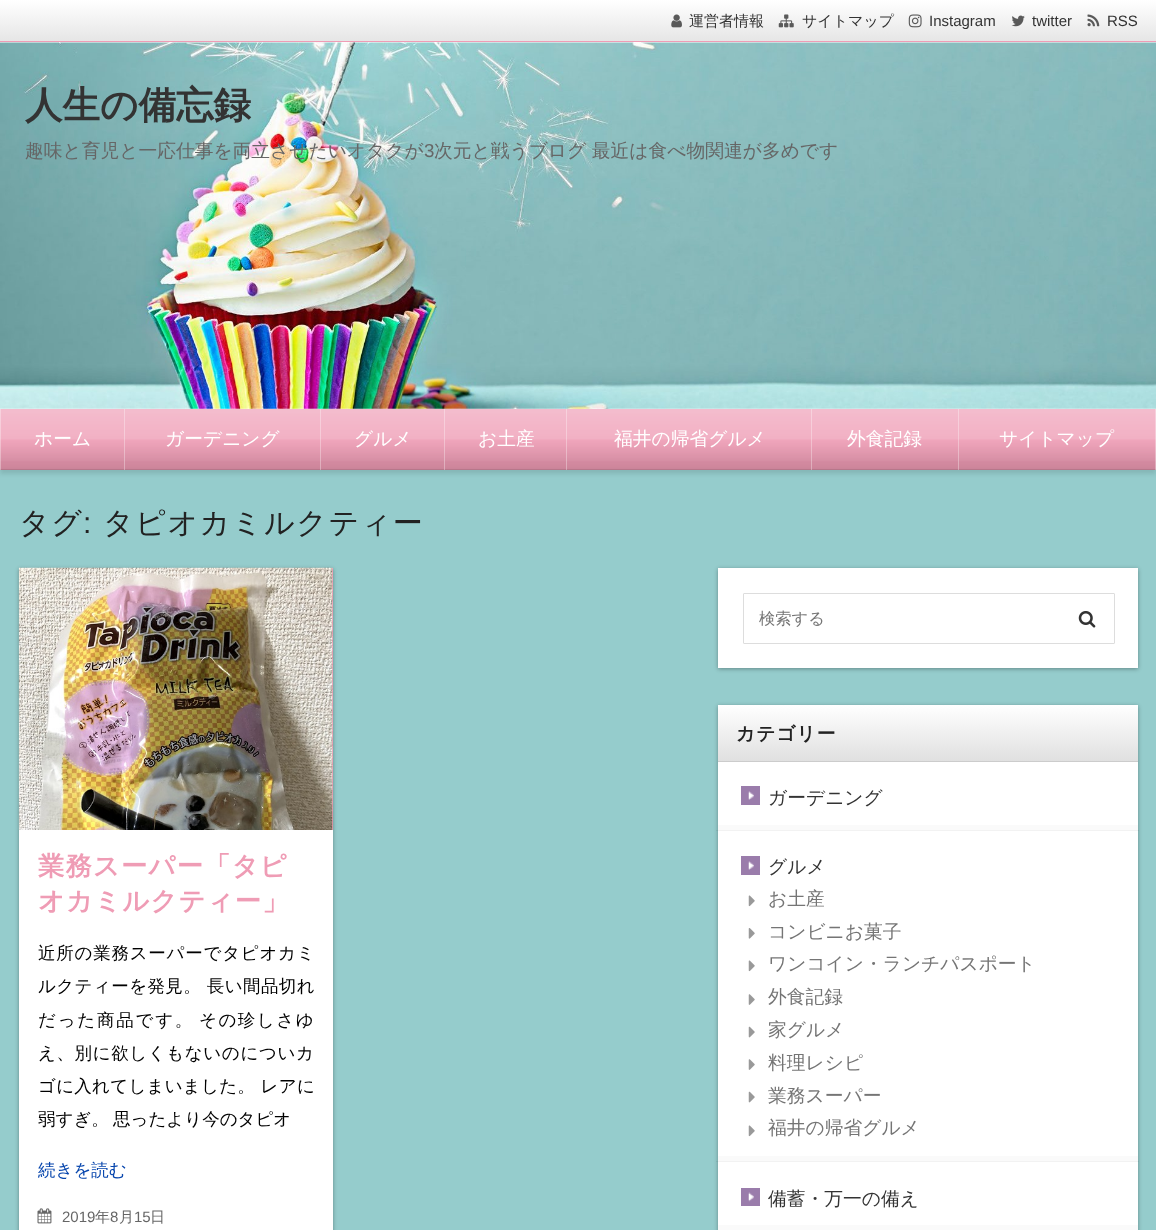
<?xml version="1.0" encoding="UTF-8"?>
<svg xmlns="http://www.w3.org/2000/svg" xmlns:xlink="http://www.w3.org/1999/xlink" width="1156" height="1230">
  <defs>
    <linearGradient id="g1" gradientUnits="userSpaceOnUse" x1="578" y1="0" x2="578" y2="41"><stop offset="0" stop-color="#ffffff" /><stop offset="1" stop-color="#e6e6e6" /></linearGradient>
    <linearGradient id="g2" gradientUnits="userSpaceOnUse" x1="928" y1="705" x2="928" y2="761"><stop offset="0" stop-color="#ffffff" /><stop offset="1" stop-color="#e0e0e0" /></linearGradient>
  </defs>
  <rect width="100%" height="100%" fill="#95cccc" />
  <rect y="42" width="1156" height="367" fill="#ffffff" />
  <rect width="1156" height="41" fill="url(#g1)" />
  <rect y="41" width="1156" height="1" fill="#ef9cb5" />
  <image x="671" y="14" width="11" height="14" xlink:href="image1.png" />
  <image x="778" y="14" width="16" height="14" xlink:href="image2.png" />
  <image x="908" y="14" width="14" height="14" xlink:href="image3.png" />
  <image x="1011" y="15" width="14" height="12" xlink:href="image4.png" />
  <image x="1087" y="14" width="13" height="13" xlink:href="image5.png" />
  <rect y="413" width="1156" height="61" fill="#000000" fill-opacity="0.1" filter="blur(2px)" />
  <image x="0" y="42" width="1156" height="367" xlink:href="image6.png" />
  <rect y="409" width="1156" height="60" fill="#ef9cb5" />
  <image x="0" y="409" width="1156" height="60" xlink:href="image7.png" />
  <rect y="469" width="1156" height="1" fill="#b6778a" />
  <image x="0" y="409" width="1156" height="52" xlink:href="image8.png" />
  <rect y="409" width="1" height="61" fill="#ffffff" fill-opacity="0.33" />
  <rect x="124" y="409" width="1" height="61" fill="#ffffff" fill-opacity="0.33" />
  <rect x="320" y="409" width="1" height="61" fill="#ffffff" fill-opacity="0.33" />
  <rect x="444" y="409" width="1" height="61" fill="#ffffff" fill-opacity="0.33" />
  <rect x="566" y="409" width="1" height="61" fill="#ffffff" fill-opacity="0.33" />
  <rect x="811" y="409" width="1" height="61" fill="#ffffff" fill-opacity="0.33" />
  <rect x="958" y="409" width="1" height="61" fill="#ffffff" fill-opacity="0.33" />
  <rect x="1155" y="409" width="1" height="61" fill="#ffffff" fill-opacity="0.33" />
  <rect x="19" y="569" width="314" height="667" fill="#000000" fill-opacity="0.33" filter="blur(2px)" />
  <rect x="19" y="830" width="314" height="400" fill="#ffffff" />
  <rect x="332" y="568" width="1" height="262" fill="#ef9cb5" />
  <image x="18" y="567" width="315" height="263" xlink:href="image9.png" />
  <image x="37" y="1208" width="15" height="16" xlink:href="image10.png" />
  <rect x="718" y="569" width="420" height="100" fill="#000000" fill-opacity="0.33" filter="blur(2px)" />
  <rect x="718" y="568" width="420" height="100" fill="#ffffff" />
  <rect x="743.5" y="593.5" width="371" height="50" rx="0.5" fill="none" stroke="#dddddd" />
  <image x="1078" y="611" width="18" height="17" xlink:href="image11.png" />
  <rect x="718" y="706" width="420" height="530" fill="#000000" fill-opacity="0.33" filter="blur(2px)" />
  <rect x="718" y="762" width="420" height="463" fill="#ffffff" />
  <rect x="718" y="705" width="420" height="56" fill="url(#g2)" />
  <rect x="718" y="761" width="420" height="1" fill="#cccccc" />
  <rect x="718" y="825" width="420" height="5" fill="#fafafa" />
  <rect x="716" y="830" width="423" height="1" fill="#000000" fill-opacity="0.05" />
  <rect x="741" y="786" width="19" height="19" fill="#9a7cab" />
  <image x="748" y="791" width="6" height="9" xlink:href="image12.png" />
  <rect x="718" y="1156" width="420" height="5" fill="#fafafa" />
  <rect x="716" y="1161" width="423" height="1" fill="#000000" fill-opacity="0.05" />
  <rect x="741" y="856" width="19" height="19" fill="#9a7cab" />
  <image x="748" y="861" width="6" height="9" xlink:href="image12.png" />
  <image x="748" y="895" width="7" height="12" xlink:href="image13.png" />
  <image x="748" y="928" width="7" height="11" xlink:href="image14.png" />
  <image x="748" y="960" width="7" height="12" xlink:href="image13.png" />
  <image x="748" y="994" width="7" height="11" xlink:href="image15.png" />
  <image x="748" y="1026" width="7" height="12" xlink:href="image16.png" />
  <image x="748" y="1059" width="7" height="11" xlink:href="image15.png" />
  <image x="748" y="1091" width="7" height="12" xlink:href="image16.png" />
  <image x="748" y="1125" width="7" height="12" xlink:href="image13.png" />
  <rect x="718" y="1225" width="420" height="5" fill="#fafafa" />
  <rect x="741" y="1188" width="19" height="18" fill="#9a7cab" />
  <image x="748" y="1192" width="6" height="10" xlink:href="image17.png" />
  <text x="689" y="26" style="font-family: WenQuanYi Zen Hei; font-size: 15px; font-weight: 500; fill: #333333">運営者情報</text>
  <text x="802" y="26" style="font-family: WenQuanYi Zen Hei; font-size: 15px; font-weight: 500; fill: #333333">サイトマップ</text>
  <text x="929" y="26" style="font-family: Liberation Sans; font-size: 15px; fill: #333333">Instagram</text>
  <text x="1032" y="26" style="font-family: Liberation Sans; font-size: 15px; fill: #333333">twitter</text>
  <text x="1107" y="26" style="font-family: Liberation Sans; font-size: 15px; fill: #333333">RSS</text>
  <text x="25" y="118" style="font-family: WenQuanYi Zen Hei; font-size: 37.5px; font-weight: bold; fill: #333333">人生の備忘録</text>
  <text x="25" y="157" style="font-family: WenQuanYi Zen Hei; font-size: 18.75px; font-weight: 500; fill: #666666">趣味と育児と一応仕事を両立させたいオタクが</text>
  <text x="424" y="157" style="font-family: Liberation Sans; font-size: 18.75px; fill: #666666">3</text>
  <text x="434" y="157" style="font-family: WenQuanYi Zen Hei; font-size: 18.75px; font-weight: 500; fill: #666666">次元と戦うブログ 最近は食べ物関連が多めです</text>
  <text x="34" y="445" style="font-family: WenQuanYi Zen Hei; font-size: 18.75px; font-weight: 500; fill: #ffffff">ホーム</text>
  <text x="165" y="445" style="font-family: WenQuanYi Zen Hei; font-size: 18.75px; font-weight: 500; fill: #ffffff">ガーデニング</text>
  <text x="354" y="445" style="font-family: WenQuanYi Zen Hei; font-size: 18.75px; font-weight: 500; fill: #ffffff">グルメ</text>
  <text x="478" y="445" style="font-family: WenQuanYi Zen Hei; font-size: 18.75px; font-weight: 500; fill: #ffffff">お土産</text>
  <text x="614" y="445" style="font-family: WenQuanYi Zen Hei; font-size: 18.75px; font-weight: 500; fill: #ffffff">福井の帰省グルメ</text>
  <text x="847" y="445" style="font-family: WenQuanYi Zen Hei; font-size: 18.75px; font-weight: 500; fill: #ffffff">外食記録</text>
  <text x="999" y="445" style="font-family: WenQuanYi Zen Hei; font-size: 18.75px; font-weight: 500; fill: #ffffff">サイトマップ</text>
  <text x="19" y="533" style="font-family: WenQuanYi Zen Hei; font-size: 30px; font-weight: 500; letter-spacing: 1.5px; fill: #222222">タグ</text>
  <text x="83" y="533" style="font-family: Liberation Sans; font-size: 30px; letter-spacing: 1.5px; fill: #222222">:</text>
  <text x="103" y="533" style="font-family: WenQuanYi Zen Hei; font-size: 30px; font-weight: 500; letter-spacing: 1.5px; fill: #222222">タピオカミルクティー</text>
  <text x="38" y="875" style="font-family: WenQuanYi Zen Hei; font-size: 26.25px; font-weight: bold; letter-spacing: 1.25px; fill: #ef9cb5">業務スーパー「タピ</text>
  <text x="38" y="910" style="font-family: WenQuanYi Zen Hei; font-size: 26.25px; font-weight: bold; letter-spacing: 1.25px; fill: #ef9cb5">オカミルクティー」</text>
  <text x="38" y="959" style="font-family: WenQuanYi Zen Hei; font-size: 17.5px; font-weight: 500; letter-spacing: 0.75px; fill: #000000">近所の業務スーパーでタピオカミ</text>
  <text x="38" y="992" style="font-family: WenQuanYi Zen Hei; font-size: 17.5px; font-weight: 500; letter-spacing: 0.4px; fill: #000000">ルクティーを発見。 長い間品切れ</text>
  <text x="38" y="1026" style="font-family: WenQuanYi Zen Hei; font-size: 17.5px; font-weight: 500; letter-spacing: 1.75px; fill: #000000">だった商品です。</text>
  <text x="199" y="1026" style="font-family: WenQuanYi Zen Hei; font-size: 17.5px; font-weight: 500; letter-spacing: 1.5px; fill: #000000">その珍しさゆ</text>
  <text x="38" y="1059" style="font-family: WenQuanYi Zen Hei; font-size: 17.5px; font-weight: 500; letter-spacing: 0.6px; fill: #000000">え、別に欲しくもないのについカ</text>
  <text x="38" y="1092" style="font-family: WenQuanYi Zen Hei; font-size: 17.5px; font-weight: 500; letter-spacing: 0.25px; fill: #000000">ゴに入れてしまいました。 レアに</text>
  <text x="38" y="1125" style="font-family: WenQuanYi Zen Hei; font-size: 17.5px; font-weight: 500; fill: #000000">弱すぎ。</text>
  <text x="113" y="1125" style="font-family: WenQuanYi Zen Hei; font-size: 17.5px; font-weight: 500; fill: #000000">思ったより今のタピオ</text>
  <text x="38" y="1176" style="font-family: WenQuanYi Zen Hei; font-size: 17.5px; font-weight: 500; fill: #0645ad">続きを読む</text>
  <text x="62" y="1222" style="font-family: Liberation Sans; font-size: 15px; fill: #666666">2019</text>
  <text x="95" y="1222" style="font-family: WenQuanYi Zen Hei; font-size: 15px; font-weight: 500; fill: #666666">年</text>
  <text x="110" y="1222" style="font-family: Liberation Sans; font-size: 15px; fill: #666666">8</text>
  <text x="119" y="1222" style="font-family: WenQuanYi Zen Hei; font-size: 15px; font-weight: 500; fill: #666666">月</text>
  <text x="134" y="1222" style="font-family: Liberation Sans; font-size: 15px; fill: #666666">15</text>
  <text x="150" y="1222" style="font-family: WenQuanYi Zen Hei; font-size: 15px; font-weight: 500; fill: #666666">日</text>
  <text x="759" y="624" style="font-family: WenQuanYi Zen Hei; font-size: 16.25px; font-weight: 500; fill: #757575">検索する</text>
  <text x="736" y="740" style="font-family: WenQuanYi Zen Hei; font-size: 18.75px; font-weight: bold; letter-spacing: 1px; fill: #222222">カテゴリー</text>
  <text x="768" y="804" style="font-family: WenQuanYi Zen Hei; font-size: 18.75px; font-weight: 500; fill: #333333">ガーデニング</text>
  <text x="768" y="873" style="font-family: WenQuanYi Zen Hei; font-size: 18.75px; font-weight: 500; fill: #333333">グルメ</text>
  <text x="768" y="905" style="font-family: WenQuanYi Zen Hei; font-size: 18.75px; font-weight: 500; fill: #757575">お土産</text>
  <text x="768" y="938" style="font-family: WenQuanYi Zen Hei; font-size: 18.75px; font-weight: 500; fill: #757575">コンビニお菓子</text>
  <text x="768" y="970" style="font-family: WenQuanYi Zen Hei; font-size: 18.75px; font-weight: 500; fill: #757575">ワンコイン・ランチパスポート</text>
  <text x="768" y="1003" style="font-family: WenQuanYi Zen Hei; font-size: 18.75px; font-weight: 500; fill: #757575">外食記録</text>
  <text x="768" y="1036" style="font-family: WenQuanYi Zen Hei; font-size: 18.75px; font-weight: 500; fill: #757575">家グルメ</text>
  <text x="768" y="1069" style="font-family: WenQuanYi Zen Hei; font-size: 18.75px; font-weight: 500; fill: #757575">料理レシピ</text>
  <text x="768" y="1102" style="font-family: WenQuanYi Zen Hei; font-size: 18.75px; font-weight: 500; fill: #757575">業務スーパー</text>
  <text x="768" y="1134" style="font-family: WenQuanYi Zen Hei; font-size: 18.75px; font-weight: 500; fill: #757575">福井の帰省グルメ</text>
  <text x="768" y="1205" style="font-family: WenQuanYi Zen Hei; font-size: 18.75px; font-weight: 500; fill: #333333">備蓄・万一の備え</text>
</svg>
